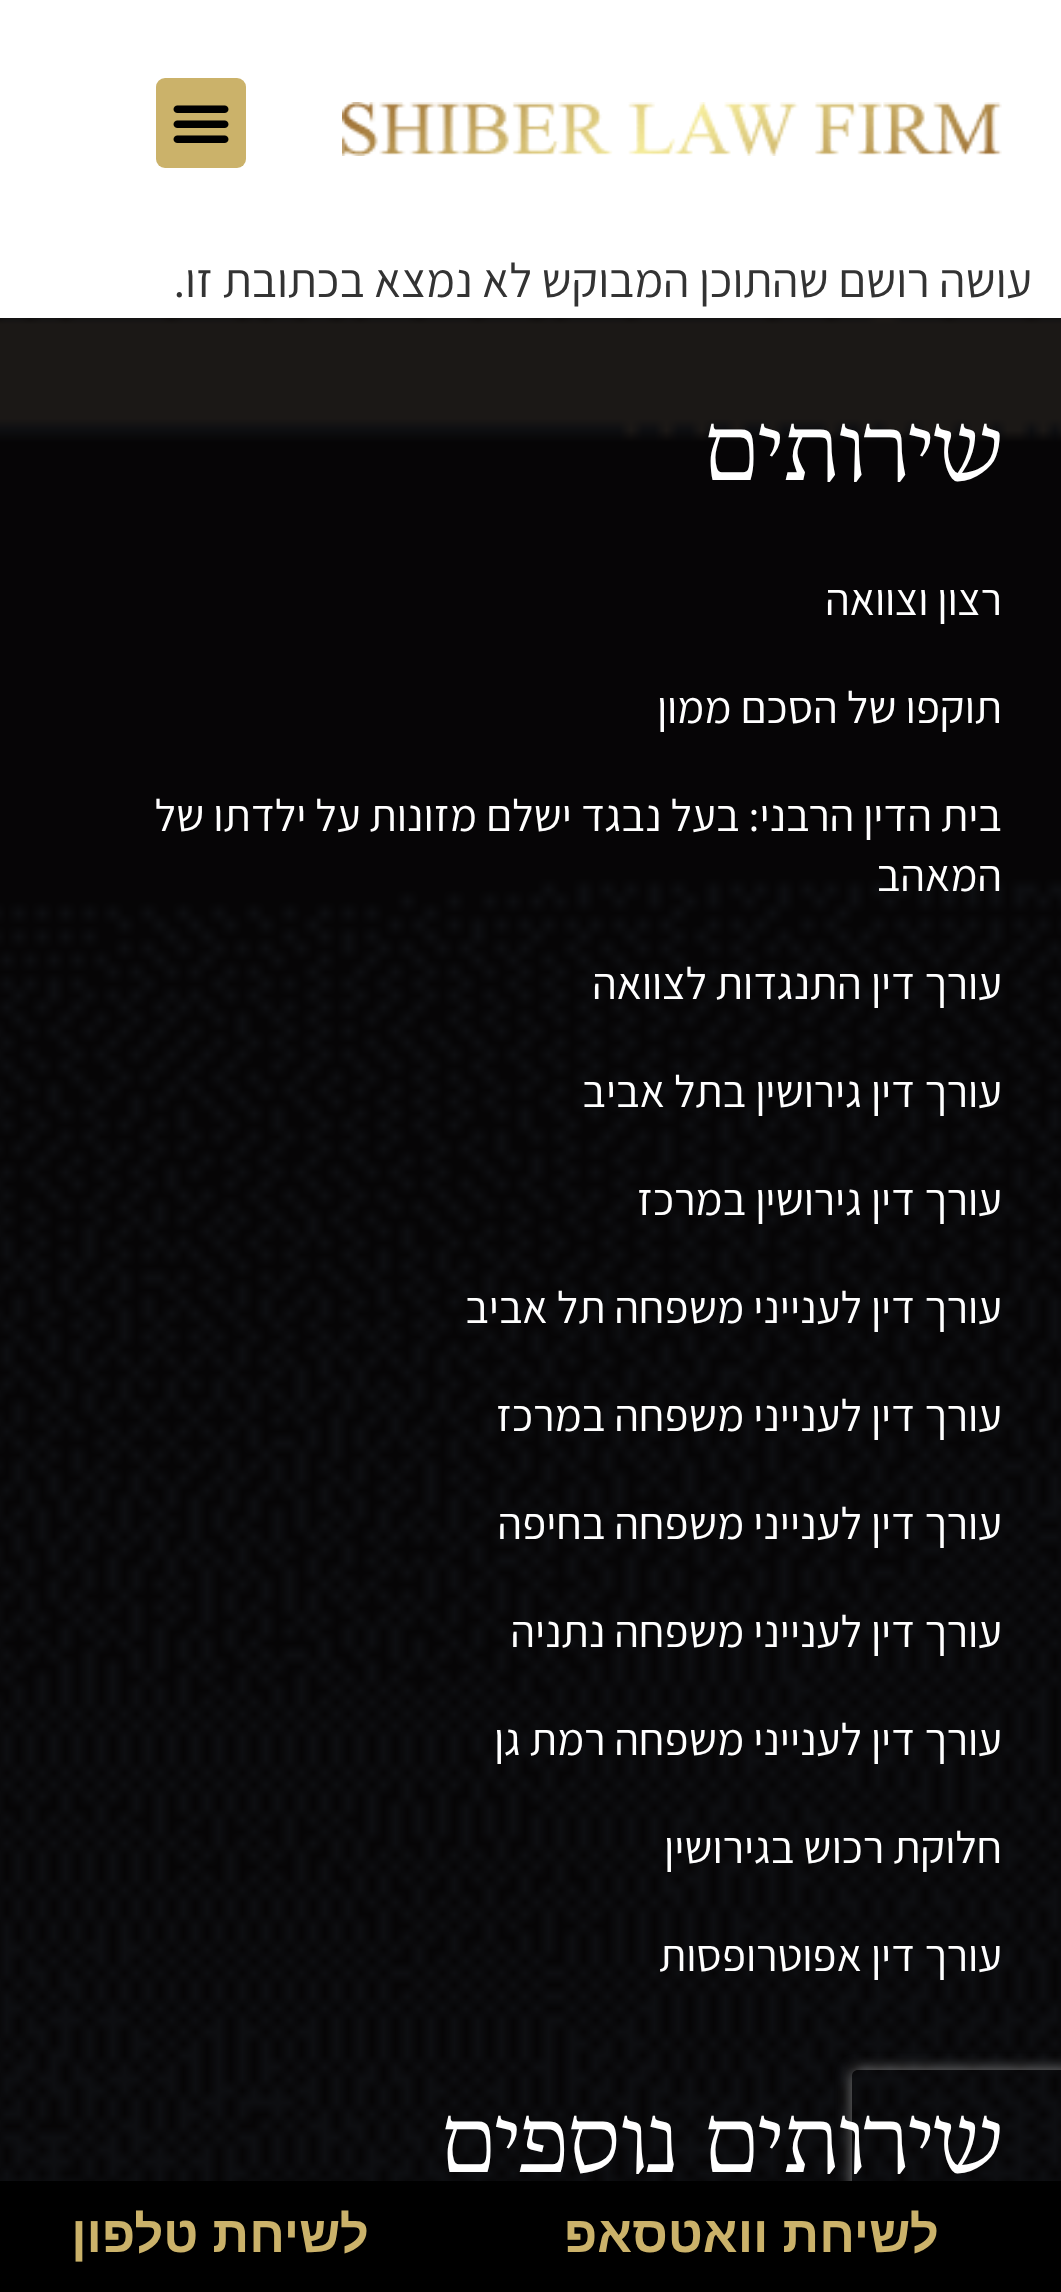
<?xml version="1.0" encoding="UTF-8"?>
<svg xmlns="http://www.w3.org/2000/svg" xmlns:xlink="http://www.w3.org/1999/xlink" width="1061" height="2292">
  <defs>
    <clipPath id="clip1"><path d="M 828 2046 h 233 v 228 h -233 z m 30 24 h 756 c 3.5 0 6 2.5 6 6 v 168 c 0 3.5 -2.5 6 -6 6 h -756 c -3.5 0 -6 -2.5 -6 -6 v -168 c 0 -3.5 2.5 -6 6 -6 z" clip-rule="evenodd" /></clipPath>
  </defs>
  <rect width="100%" height="100%" fill="#ffffff" />
  <image x="342" y="102" width="660" height="54" xlink:href="image1.png" />
  <rect x="156" y="78" width="90" height="90" rx="9" fill="#cbb26a" />
  <image x="173" y="105" width="56" height="38" xlink:href="image2.png" />
  <image x="0" y="318" width="1061" height="1863" xlink:href="image3.png" />
  <g clip-path="url(#clip1)">
    <rect x="852" y="2070" width="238" height="180" rx="6" fill="#808080" filter="blur(7.5px)" />
  </g>
  <rect y="2181" width="1061" height="111" fill="#000000" />
  <text x="1032" y="297" style="font-family: Assistant; font-size: 48px; direction: rtl; fill: #333333">עושה רושם שהתוכן המבוקש לא נמצא בכתובת זו.</text>
  <text x="1002" y="480" style="font-family: Bona Nova; font-size: 96px; direction: rtl; fill: #ffffff">שירותים</text>
  <text x="1002" y="615" style="font-family: Assistant; font-size: 45px; direction: rtl; fill: #ffffff">רצון וצוואה</text>
  <text x="1002" y="723" style="font-family: Assistant; font-size: 45px; direction: rtl; fill: #ffffff">תוקפו של הסכם ממון</text>
  <text x="1002" y="831" style="font-family: Assistant; font-size: 45px; direction: rtl; fill: #ffffff">בית הדין הרבני: בעל נבגד ישלם מזונות על ילדתו של</text>
  <text x="1002" y="891" style="font-family: Assistant; font-size: 45px; direction: rtl; fill: #ffffff">המאהב</text>
  <text x="1002" y="999" style="font-family: Assistant; font-size: 45px; direction: rtl; fill: #ffffff">עורך דין התנגדות לצוואה</text>
  <text x="1002" y="1107" style="font-family: Assistant; font-size: 45px; direction: rtl; fill: #ffffff">עורך דין גירושין בתל אביב</text>
  <text x="1002" y="1215" style="font-family: Assistant; font-size: 45px; direction: rtl; fill: #ffffff">עורך דין גירושין במרכז</text>
  <text x="1002" y="1323" style="font-family: Assistant; font-size: 45px; direction: rtl; fill: #ffffff">עורך דין לענייני משפחה תל אביב</text>
  <text x="1002" y="1431" style="font-family: Assistant; font-size: 45px; direction: rtl; fill: #ffffff">עורך דין לענייני משפחה במרכז</text>
  <text x="1002" y="1539" style="font-family: Assistant; font-size: 45px; direction: rtl; fill: #ffffff">עורך דין לענייני משפחה בחיפה</text>
  <text x="1002" y="1647" style="font-family: Assistant; font-size: 45px; direction: rtl; fill: #ffffff">עורך דין לענייני משפחה נתניה</text>
  <text x="1002" y="1755" style="font-family: Assistant; font-size: 45px; direction: rtl; fill: #ffffff">עורך דין לענייני משפחה רמת גן</text>
  <text x="1002" y="1863" style="font-family: Assistant; font-size: 45px; direction: rtl; fill: #ffffff">חלוקת רכוש בגירושין</text>
  <text x="1002" y="1971" style="font-family: Assistant; font-size: 45px; direction: rtl; fill: #ffffff">עורך דין אפוטרופסות</text>
  <text x="1002" y="2172" style="font-family: Bona Nova; font-size: 96px; direction: rtl; fill: #ffffff">שירותים נוספים</text>
  <text x="939" y="2252" style="font-family: Liberation Sans; font-size: 51px; font-weight: bold; direction: rtl; fill: #cbb26a">לשיחת וואטסאפ</text>
  <text x="369" y="2252" style="font-family: Liberation Sans; font-size: 51px; font-weight: bold; direction: rtl; fill: #cbb26a">לשיחת טלפון</text>
</svg>
